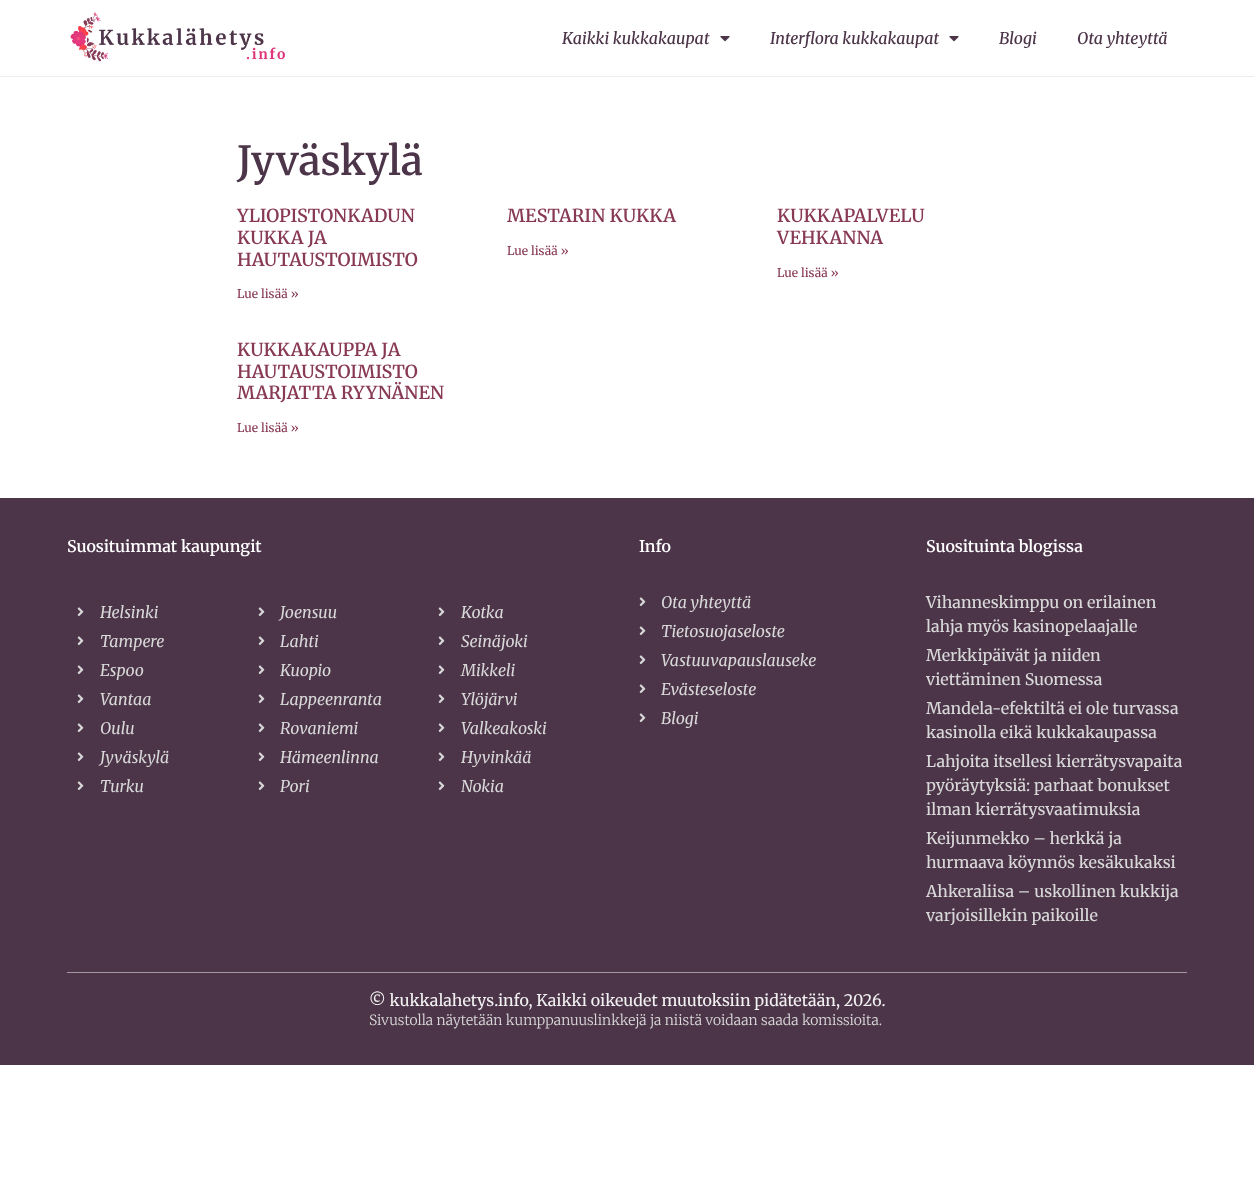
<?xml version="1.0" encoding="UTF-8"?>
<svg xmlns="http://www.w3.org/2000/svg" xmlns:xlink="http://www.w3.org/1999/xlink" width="1254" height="1201">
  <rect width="100%" height="100%" fill="#ffffff" />
  <rect y="76" width="1254" height="1" fill="#edebed" />
  <image x="70" y="12" width="215" height="50" xlink:href="image1.png" />
  <image x="720" y="36" width="10" height="6" xlink:href="image2.png" />
  <image x="949" y="36" width="10" height="6" xlink:href="image2.png" />
  <rect y="498" width="1254" height="567" fill="#4c3549" />
  <image x="77" y="607" width="7" height="10" xlink:href="image3.png" />
  <image x="77" y="636" width="7" height="10" xlink:href="image3.png" />
  <image x="77" y="665" width="7" height="10" xlink:href="image3.png" />
  <image x="77" y="694" width="7" height="10" xlink:href="image3.png" />
  <image x="77" y="723" width="7" height="10" xlink:href="image3.png" />
  <image x="77" y="752" width="7" height="10" xlink:href="image3.png" />
  <image x="77" y="781" width="7" height="10" xlink:href="image3.png" />
  <image x="258" y="607" width="7" height="10" xlink:href="image3.png" />
  <image x="258" y="636" width="7" height="10" xlink:href="image3.png" />
  <image x="258" y="665" width="7" height="10" xlink:href="image3.png" />
  <image x="258" y="694" width="7" height="10" xlink:href="image3.png" />
  <image x="258" y="723" width="7" height="10" xlink:href="image3.png" />
  <image x="258" y="752" width="7" height="10" xlink:href="image3.png" />
  <image x="258" y="781" width="7" height="10" xlink:href="image3.png" />
  <image x="438" y="607" width="7" height="10" xlink:href="image3.png" />
  <image x="438" y="636" width="7" height="10" xlink:href="image3.png" />
  <image x="438" y="665" width="7" height="10" xlink:href="image3.png" />
  <image x="438" y="694" width="7" height="10" xlink:href="image3.png" />
  <image x="438" y="723" width="7" height="10" xlink:href="image3.png" />
  <image x="438" y="752" width="7" height="10" xlink:href="image3.png" />
  <image x="438" y="781" width="7" height="10" xlink:href="image3.png" />
  <image x="639" y="597" width="7" height="10" xlink:href="image3.png" />
  <image x="639" y="626" width="7" height="10" xlink:href="image3.png" />
  <image x="639" y="655" width="7" height="10" xlink:href="image3.png" />
  <image x="639" y="684" width="7" height="10" xlink:href="image3.png" />
  <image x="639" y="713" width="7" height="10" xlink:href="image3.png" />
  <rect x="67" y="972" width="1120" height="1" fill="#a498a2" />
  <text x="562" y="44" style="font-family: Merriweather; font-size: 16px; font-weight: 500; font-style: italic; fill: #4c3549">Kaikki kukkakaupat</text>
  <text x="770" y="44" style="font-family: Merriweather; font-size: 16px; font-weight: 500; font-style: italic; fill: #4c3549">Interflora kukkakaupat</text>
  <text x="999" y="44" style="font-family: Merriweather; font-size: 16px; font-weight: 500; font-style: italic; fill: #4c3549">Blogi</text>
  <text x="1077" y="44" style="font-family: Merriweather; font-size: 16px; font-weight: 500; font-style: italic; fill: #4c3549">Ota yhteyttä</text>
  <text x="237" y="175" style="font-family: Merriweather; font-size: 40px; font-weight: 600; fill: #4c3549">Jyväskylä</text>
  <text x="237" y="222" style="font-family: Merriweather; font-size: 18px; font-weight: 600; fill: #883955">YLIOPISTONKADUN</text>
  <text x="237" y="244" style="font-family: Merriweather; font-size: 18px; font-weight: 600; fill: #883955">KUKKA JA</text>
  <text x="237" y="266" style="font-family: Merriweather; font-size: 18px; font-weight: 600; fill: #883955">HAUTAUSTOIMISTO</text>
  <text x="237" y="298" style="font-family: Merriweather; font-size: 12px; font-weight: 500; fill: #883955">Lue lisää »</text>
  <text x="507" y="222" style="font-family: Merriweather; font-size: 18px; font-weight: 600; fill: #883955">MESTARIN KUKKA</text>
  <text x="507" y="255" style="font-family: Merriweather; font-size: 12px; font-weight: 500; fill: #883955">Lue lisää »</text>
  <text x="777" y="222" style="font-family: Merriweather; font-size: 18px; font-weight: 600; fill: #883955">KUKKAPALVELU</text>
  <text x="777" y="244" style="font-family: Merriweather; font-size: 18px; font-weight: 600; fill: #883955">VEHKANNA</text>
  <text x="777" y="277" style="font-family: Merriweather; font-size: 12px; font-weight: 500; fill: #883955">Lue lisää »</text>
  <text x="237" y="356" style="font-family: Merriweather; font-size: 18px; font-weight: 600; fill: #883955">KUKKAKAUPPA JA</text>
  <text x="237" y="378" style="font-family: Merriweather; font-size: 18px; font-weight: 600; fill: #883955">HAUTAUSTOIMISTO</text>
  <text x="237" y="399" style="font-family: Merriweather; font-size: 18px; font-weight: 600; fill: #883955">MARJATTA RYYNÄNEN</text>
  <text x="237" y="432" style="font-family: Merriweather; font-size: 12px; font-weight: 500; fill: #883955">Lue lisää »</text>
  <text x="67" y="552" style="font-family: Merriweather; font-size: 16px; font-weight: 600; fill: #ffffff">Suosituimmat kaupungit</text>
  <text x="100" y="618" style="font-family: Merriweather; font-size: 16px; font-style: italic; fill: #d8d8d8">Helsinki</text>
  <text x="100" y="647" style="font-family: Merriweather; font-size: 16px; font-style: italic; fill: #d8d8d8">Tampere</text>
  <text x="100" y="676" style="font-family: Merriweather; font-size: 16px; font-style: italic; fill: #d8d8d8">Espoo</text>
  <text x="100" y="705" style="font-family: Merriweather; font-size: 16px; font-style: italic; fill: #d8d8d8">Vantaa</text>
  <text x="100" y="734" style="font-family: Merriweather; font-size: 16px; font-style: italic; fill: #d8d8d8">Oulu</text>
  <text x="100" y="763" style="font-family: Merriweather; font-size: 16px; font-style: italic; fill: #d8d8d8">Jyväskylä</text>
  <text x="100" y="792" style="font-family: Merriweather; font-size: 16px; font-style: italic; fill: #d8d8d8">Turku</text>
  <text x="280" y="618" style="font-family: Merriweather; font-size: 16px; font-style: italic; fill: #d8d8d8">Joensuu</text>
  <text x="280" y="647" style="font-family: Merriweather; font-size: 16px; font-style: italic; fill: #d8d8d8">Lahti</text>
  <text x="280" y="676" style="font-family: Merriweather; font-size: 16px; font-style: italic; fill: #d8d8d8">Kuopio</text>
  <text x="280" y="705" style="font-family: Merriweather; font-size: 16px; font-style: italic; fill: #d8d8d8">Lappeenranta</text>
  <text x="280" y="734" style="font-family: Merriweather; font-size: 16px; font-style: italic; fill: #d8d8d8">Rovaniemi</text>
  <text x="280" y="763" style="font-family: Merriweather; font-size: 16px; font-style: italic; fill: #d8d8d8">Hämeenlinna</text>
  <text x="280" y="792" style="font-family: Merriweather; font-size: 16px; font-style: italic; fill: #d8d8d8">Pori</text>
  <text x="461" y="618" style="font-family: Merriweather; font-size: 16px; font-style: italic; fill: #d8d8d8">Kotka</text>
  <text x="461" y="647" style="font-family: Merriweather; font-size: 16px; font-style: italic; fill: #d8d8d8">Seinäjoki</text>
  <text x="461" y="676" style="font-family: Merriweather; font-size: 16px; font-style: italic; fill: #d8d8d8">Mikkeli</text>
  <text x="461" y="705" style="font-family: Merriweather; font-size: 16px; font-style: italic; fill: #d8d8d8">Ylöjärvi</text>
  <text x="461" y="734" style="font-family: Merriweather; font-size: 16px; font-style: italic; fill: #d8d8d8">Valkeakoski</text>
  <text x="461" y="763" style="font-family: Merriweather; font-size: 16px; font-style: italic; fill: #d8d8d8">Hyvinkää</text>
  <text x="461" y="792" style="font-family: Merriweather; font-size: 16px; font-style: italic; fill: #d8d8d8">Nokia</text>
  <text x="639" y="552" style="font-family: Merriweather; font-size: 16px; font-weight: 600; fill: #ffffff">Info</text>
  <text x="661" y="608" style="font-family: Merriweather; font-size: 16px; font-style: italic; fill: #d8d8d8">Ota yhteyttä</text>
  <text x="661" y="637" style="font-family: Merriweather; font-size: 16px; font-style: italic; fill: #d8d8d8">Tietosuojaseloste</text>
  <text x="661" y="666" style="font-family: Merriweather; font-size: 16px; font-style: italic; fill: #d8d8d8">Vastuuvapauslauseke</text>
  <text x="661" y="695" style="font-family: Merriweather; font-size: 16px; font-style: italic; fill: #d8d8d8">Evästeseloste</text>
  <text x="661" y="724" style="font-family: Merriweather; font-size: 16px; font-style: italic; fill: #d8d8d8">Blogi</text>
  <text x="926" y="552" style="font-family: Merriweather; font-size: 16px; font-weight: 600; fill: #ffffff">Suosituinta blogissa</text>
  <text x="926" y="608" style="font-family: Merriweather; font-size: 16px; font-weight: 500; fill: #d8d8d8">Vihanneskimppu on erilainen</text>
  <text x="926" y="632" style="font-family: Merriweather; font-size: 16px; font-weight: 500; fill: #d8d8d8">lahja myös kasinopelaajalle</text>
  <text x="926" y="661" style="font-family: Merriweather; font-size: 16px; font-weight: 500; fill: #d8d8d8">Merkkipäivät ja niiden</text>
  <text x="926" y="685" style="font-family: Merriweather; font-size: 16px; font-weight: 500; fill: #d8d8d8">viettäminen Suomessa</text>
  <text x="926" y="714" style="font-family: Merriweather; font-size: 16px; font-weight: 500; fill: #d8d8d8">Mandela-efektiltä ei ole turvassa</text>
  <text x="926" y="738" style="font-family: Merriweather; font-size: 16px; font-weight: 500; fill: #d8d8d8">kasinolla eikä kukkakaupassa</text>
  <text x="926" y="767" style="font-family: Merriweather; font-size: 16px; font-weight: 500; fill: #d8d8d8">Lahjoita itsellesi kierrätysvapaita</text>
  <text x="926" y="791" style="font-family: Merriweather; font-size: 16px; font-weight: 500; fill: #d8d8d8">pyöräytyksiä: parhaat bonukset</text>
  <text x="926" y="815" style="font-family: Merriweather; font-size: 16px; font-weight: 500; fill: #d8d8d8">ilman kierrätysvaatimuksia</text>
  <text x="926" y="844" style="font-family: Merriweather; font-size: 16px; font-weight: 500; fill: #d8d8d8">Keijunmekko – herkkä ja</text>
  <text x="926" y="868" style="font-family: Merriweather; font-size: 16px; font-weight: 500; fill: #d8d8d8">hurmaava köynnös kesäkukaksi</text>
  <text x="926" y="897" style="font-family: Merriweather; font-size: 16px; font-weight: 500; fill: #d8d8d8">Ahkeraliisa – uskollinen kukkija</text>
  <text x="926" y="921" style="font-family: Merriweather; font-size: 16px; font-weight: 500; fill: #d8d8d8">varjoisillekin paikoille</text>
  <text x="369" y="1006" style="font-family: Merriweather; font-size: 16px; fill: #f2f2f2">© kukkalahetys.info, Kaikki oikeudet muutoksiin pidätetään, 2026.</text>
  <text x="369" y="1025" style="font-family: Merriweather; font-size: 14px; font-weight: 300; fill: #d8d8d8">Sivustolla näytetään kumppanuuslinkkejä ja niistä voidaan saada komissioita.</text>
</svg>
